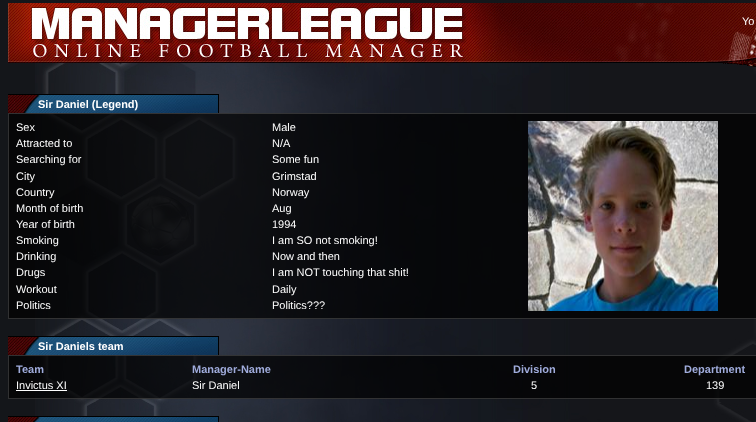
<?xml version="1.0" encoding="UTF-8"?>
<svg xmlns="http://www.w3.org/2000/svg" xmlns:xlink="http://www.w3.org/1999/xlink" width="756" height="422">
  <rect width="100%" height="100%" fill="#14161a" />
  <image x="35" y="63" width="721" height="359" xlink:href="image1.png" />
  <image x="8" y="3" width="748" height="60" xlink:href="image2.png" />
  <image x="723" y="63" width="33" height="4" xlink:href="image3.png" />
  <image x="8" y="95" width="210" height="18" xlink:href="image4.png" />
  <rect x="8" y="94" width="211" height="1" fill="#000000" />
  <rect x="218" y="94" width="1" height="19" fill="#000000" />
  <rect x="8" y="113" width="748" height="206" fill="#000000" fill-opacity="0.7" />
  <rect x="8.5" y="113.5" width="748" height="205" fill="none" stroke="#444444" stroke-opacity="0.7" />
  <image x="528" y="121" width="190" height="190" xlink:href="image5.png" />
  <image x="8" y="337" width="210" height="18" xlink:href="image4.png" />
  <rect x="8" y="336" width="211" height="1" fill="#000000" />
  <rect x="218" y="336" width="1" height="19" fill="#000000" />
  <rect x="8" y="355" width="748" height="44" fill="#000000" fill-opacity="0.7" />
  <rect x="8.5" y="355.5" width="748" height="43" fill="none" stroke="#444444" stroke-opacity="0.7" />
  <rect x="16" y="390" width="51" height="1" fill="#ffffff" />
  <image x="8" y="417" width="210" height="5" xlink:href="image6.png" />
  <rect x="8" y="416" width="211" height="1" fill="#000000" />
  <rect x="218" y="416" width="1" height="6" fill="#000000" />
  <text x="742" y="25" style="font-family: Liberation Sans; font-size: 11px; fill: #ffffff">Yo</text>
  <text x="38" y="108" style="font-family: Liberation Sans; font-size: 11px; font-weight: bold; fill: #ffffff">Sir Daniel (Legend)</text>
  <text x="16" y="131" style="font-family: Liberation Sans; font-size: 11px; fill: #ffffff">Sex</text>
  <text x="272" y="131" style="font-family: Liberation Sans; font-size: 11px; fill: #ffffff">Male</text>
  <text x="16" y="147" style="font-family: Liberation Sans; font-size: 11px; fill: #ffffff">Attracted to</text>
  <text x="272" y="147" style="font-family: Liberation Sans; font-size: 11px; fill: #ffffff">N/A</text>
  <text x="16" y="163" style="font-family: Liberation Sans; font-size: 11px; fill: #ffffff">Searching for</text>
  <text x="272" y="163" style="font-family: Liberation Sans; font-size: 11px; fill: #ffffff">Some fun</text>
  <text x="16" y="180" style="font-family: Liberation Sans; font-size: 11px; fill: #ffffff">City</text>
  <text x="272" y="180" style="font-family: Liberation Sans; font-size: 11px; fill: #ffffff">Grimstad</text>
  <text x="16" y="196" style="font-family: Liberation Sans; font-size: 11px; fill: #ffffff">Country</text>
  <text x="272" y="196" style="font-family: Liberation Sans; font-size: 11px; fill: #ffffff">Norway</text>
  <text x="16" y="212" style="font-family: Liberation Sans; font-size: 11px; fill: #ffffff">Month of birth</text>
  <text x="272" y="212" style="font-family: Liberation Sans; font-size: 11px; fill: #ffffff">Aug</text>
  <text x="16" y="228" style="font-family: Liberation Sans; font-size: 11px; fill: #ffffff">Year of birth</text>
  <text x="272" y="228" style="font-family: Liberation Sans; font-size: 11px; fill: #ffffff">1994</text>
  <text x="16" y="244" style="font-family: Liberation Sans; font-size: 11px; fill: #ffffff">Smoking</text>
  <text x="272" y="244" style="font-family: Liberation Sans; font-size: 11px; fill: #ffffff">I am SO not smoking!</text>
  <text x="16" y="260" style="font-family: Liberation Sans; font-size: 11px; fill: #ffffff">Drinking</text>
  <text x="272" y="260" style="font-family: Liberation Sans; font-size: 11px; fill: #ffffff">Now and then</text>
  <text x="16" y="276" style="font-family: Liberation Sans; font-size: 11px; fill: #ffffff">Drugs</text>
  <text x="272" y="276" style="font-family: Liberation Sans; font-size: 11px; fill: #ffffff">I am NOT touching that shit!</text>
  <text x="16" y="293" style="font-family: Liberation Sans; font-size: 11px; fill: #ffffff">Workout</text>
  <text x="272" y="293" style="font-family: Liberation Sans; font-size: 11px; fill: #ffffff">Daily</text>
  <text x="16" y="309" style="font-family: Liberation Sans; font-size: 11px; fill: #ffffff">Politics</text>
  <text x="272" y="309" style="font-family: Liberation Sans; font-size: 11px; fill: #ffffff">Politics???</text>
  <text x="38" y="350" style="font-family: Liberation Sans; font-size: 11px; font-weight: bold; fill: #ffffff">Sir Daniels team</text>
  <text x="16" y="373" style="font-family: Liberation Sans; font-size: 11px; font-weight: bold; fill: #a0acdc">Team</text>
  <text x="192" y="373" style="font-family: Liberation Sans; font-size: 11px; font-weight: bold; fill: #a0acdc">Manager-Name</text>
  <text x="513" y="373" style="font-family: Liberation Sans; font-size: 11px; font-weight: bold; fill: #a0acdc">Division</text>
  <text x="684" y="373" style="font-family: Liberation Sans; font-size: 11px; font-weight: bold; fill: #a0acdc">Department</text>
  <text x="16" y="389" style="font-family: Liberation Sans; font-size: 11px; fill: #ffffff">Invictus XI</text>
  <text x="192" y="389" style="font-family: Liberation Sans; font-size: 11px; fill: #ffffff">Sir Daniel</text>
  <text x="531" y="389" style="font-family: Liberation Sans; font-size: 11px; fill: #ffffff">5</text>
  <text x="706" y="389" style="font-family: Liberation Sans; font-size: 11px; fill: #ffffff">139</text>
</svg>
